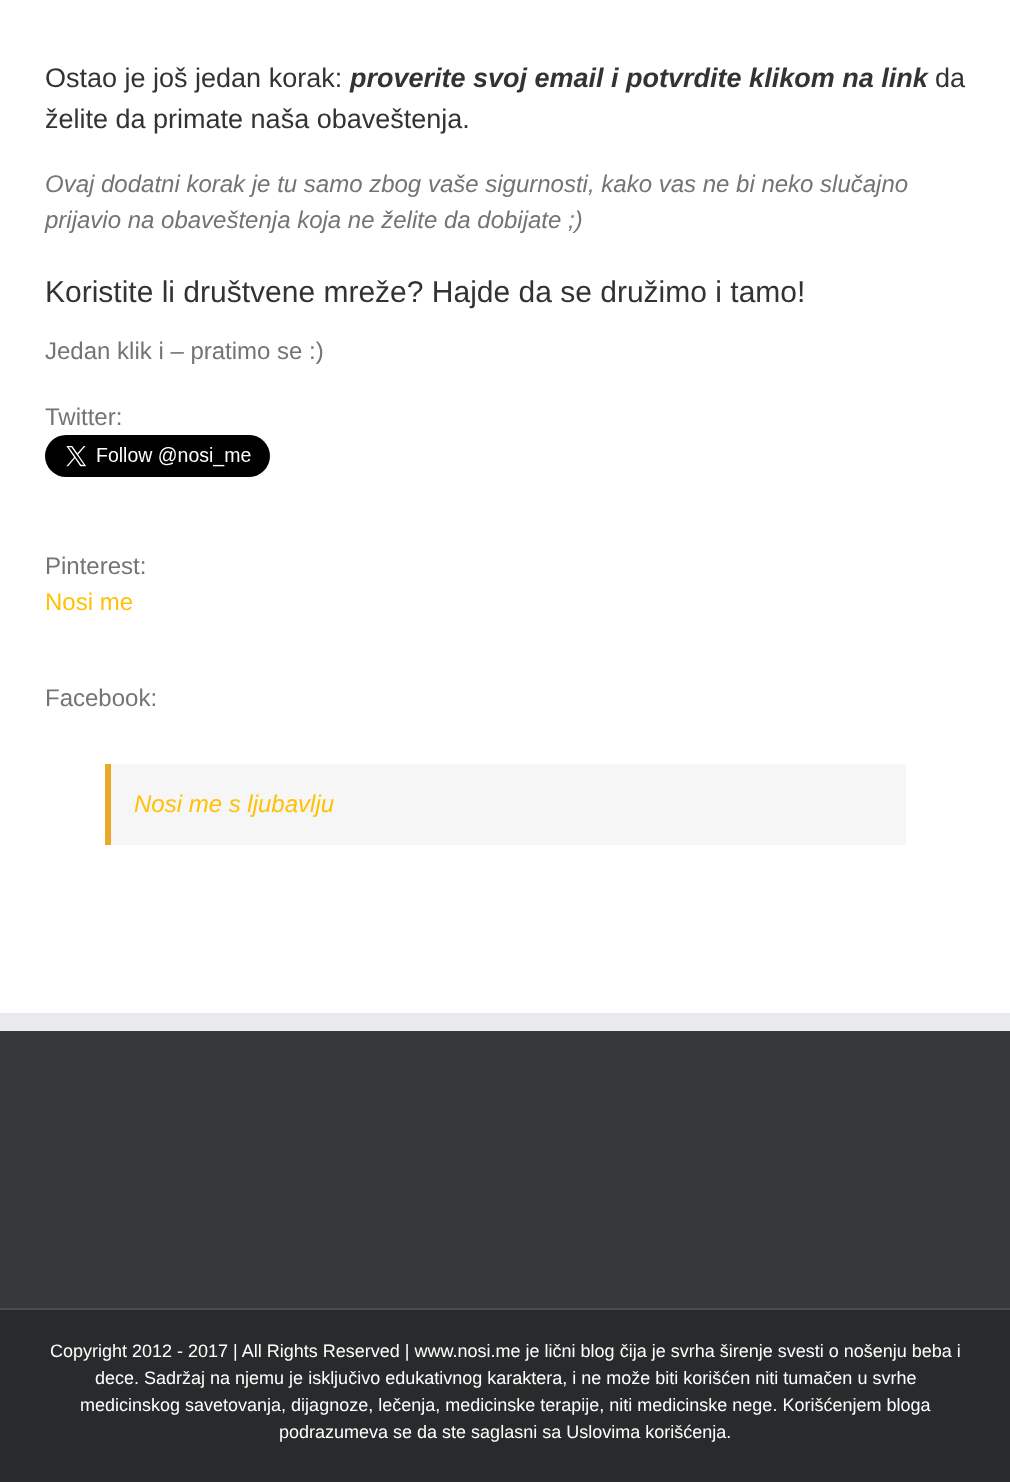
<?xml version="1.0" encoding="UTF-8"?>
<svg xmlns="http://www.w3.org/2000/svg" xmlns:xlink="http://www.w3.org/1999/xlink" width="1010" height="1482">
  <rect width="100%" height="100%" fill="#ffffff" />
  <image x="45" y="435" width="225" height="42" xlink:href="image1.png" />
  <rect x="111" y="764" width="795" height="81" fill="#f6f6f6" />
  <rect x="105" y="764" width="6" height="81" fill="#e9a825" />
  <rect y="1031" width="1010" height="277" fill="#363839" />
  <rect y="1013" width="1010" height="18" fill="#e9eaee" />
  <rect y="1310" width="1010" height="172" fill="#282a2b" />
  <rect y="1308" width="1010" height="2" fill="#4b4c4d" />
  <text x="45" y="87" style="font-family: Liberation Sans; font-size: 27px; fill: #333333">Ostao je još jedan korak:</text>
  <text x="350" y="87" style="font-family: Liberation Sans; font-size: 27px; font-weight: bold; font-style: italic; fill: #333333">proverite svoj email i potvrdite klikom na link</text>
  <text x="935" y="87" style="font-family: Liberation Sans; font-size: 27px; fill: #333333">da</text>
  <text x="45" y="128" style="font-family: Liberation Sans; font-size: 27px; fill: #333333">želite da primate naša obaveštenja.</text>
  <text x="45" y="192" style="font-family: Liberation Sans; font-size: 24px; font-style: italic; fill: #747474">Ovaj dodatni korak je tu samo zbog vaše sigurnosti, kako vas ne bi neko slučajno</text>
  <text x="45" y="228" style="font-family: Liberation Sans; font-size: 24px; font-style: italic; fill: #747474">prijavio na obaveštenja koja ne želite da dobijate ;)</text>
  <text x="45" y="302" style="font-family: Liberation Sans; font-size: 30px; fill: #333333">Koristite li društvene mreže? Hajde da se družimo i tamo!</text>
  <text x="45" y="359" style="font-family: Liberation Sans; font-size: 24px; fill: #747474">Jedan klik i – pratimo se :)</text>
  <text x="45" y="425" style="font-family: Liberation Sans; font-size: 24px; fill: #747474">Twitter:</text>
  <text x="45" y="574" style="font-family: Liberation Sans; font-size: 24px; fill: #747474">Pinterest:</text>
  <text x="45" y="610" style="font-family: Liberation Sans; font-size: 24px; fill: #ffc107">Nosi me</text>
  <text x="45" y="706" style="font-family: Liberation Sans; font-size: 24px; fill: #747474">Facebook:</text>
  <text x="134" y="812" style="font-family: Liberation Sans; font-size: 24px; font-style: italic; fill: #ffc107">Nosi me s ljubavlju</text>
  <text x="50" y="1357" style="font-family: Liberation Sans; font-size: 18px; fill: #ffffff">Copyright 2012 - 2017 | All Rights Reserved | www.nosi.me je lični blog čija je svrha širenje svesti o nošenju beba i</text>
  <text x="95" y="1384" style="font-family: Liberation Sans; font-size: 18px; fill: #ffffff">dece. Sadržaj na njemu je isključivo edukativnog karaktera, i ne može biti korišćen niti tumačen u svrhe</text>
  <text x="80" y="1411" style="font-family: Liberation Sans; font-size: 18px; fill: #ffffff">medicinskog savetovanja, dijagnoze, lečenja, medicinske terapije, niti medicinske nege. Korišćenjem bloga</text>
  <text x="279" y="1438" style="font-family: Liberation Sans; font-size: 18px; fill: #ffffff">podrazumeva se da ste saglasni sa Uslovima korišćenja.</text>
</svg>
